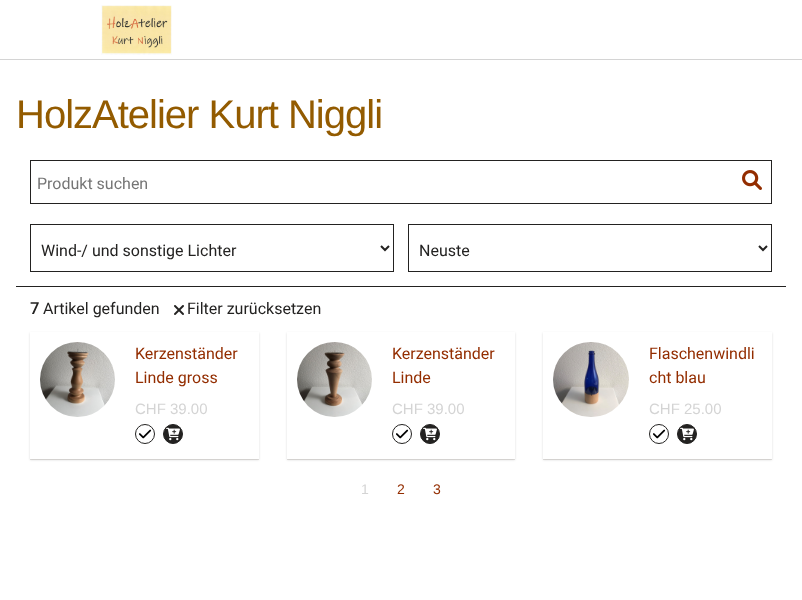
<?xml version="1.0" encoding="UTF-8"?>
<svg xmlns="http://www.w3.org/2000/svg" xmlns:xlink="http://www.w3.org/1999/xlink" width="802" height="600">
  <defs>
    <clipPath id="clip1"><rect x="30" y="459" width="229" height="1" /></clipPath>
    <clipPath id="clip2"><path d="M 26 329 h 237 v 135 h -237 z m 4 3 h 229 v 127 h -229 z" clip-rule="evenodd" /></clipPath>
    <clipPath id="clip3"><rect x="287" y="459" width="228" height="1" /></clipPath>
    <clipPath id="clip4"><path d="M 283 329 h 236 v 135 h -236 z m 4 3 h 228 v 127 h -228 z" clip-rule="evenodd" /></clipPath>
    <clipPath id="clip5"><rect x="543" y="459" width="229" height="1" /></clipPath>
    <clipPath id="clip6"><path d="M 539 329 h 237 v 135 h -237 z m 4 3 h 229 v 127 h -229 z" clip-rule="evenodd" /></clipPath>
  </defs>
  <rect width="100%" height="100%" fill="#ffffff" />
  <rect y="59" width="802" height="1" fill="#d4d4d4" />
  <image x="101" y="5" width="71" height="50" xlink:href="image1.png" />
  <rect x="16" y="286" width="770" height="1" fill="#232221" />
  <rect x="30.5" y="160.5" width="741" height="43" fill="none" stroke="#232221" />
  <image x="742" y="170" width="20" height="20" xlink:href="image2.png" />
  <rect x="30.5" y="224.5" width="363" height="47" fill="none" stroke="#232221" />
  <path d="M 381 246 l 4 4 l 4 -4" fill="none" stroke="#232221" stroke-width="2" />
  <rect x="408.5" y="224.5" width="363" height="47" fill="none" stroke="#232221" />
  <path d="M 759 246 l 4 4 l 4 -4" fill="none" stroke="#232221" stroke-width="2" />
  <image x="174" y="305" width="10" height="10" xlink:href="image3.png" />
  <g clip-path="url(#clip1)">
    <rect x="30" y="333" width="229" height="127" fill="#1e130c" fill-opacity="0.1" filter="blur(0.5px)" />
  </g>
  <g clip-path="url(#clip2)">
    <rect x="30" y="333" width="229" height="127" fill="#1e130c" fill-opacity="0.15" filter="blur(1px)" />
  </g>
  <image x="40" y="342" width="75" height="75" xlink:href="image4.png" />
  <circle cx="145" cy="434" r="9.5" fill="none" stroke="#232221" />
  <image x="139" y="429" width="13" height="10" xlink:href="image5.png" />
  <circle cx="173" cy="434" r="9.5" fill="#232221" stroke="#232221" />
  <image x="166" y="427" width="14" height="14" xlink:href="image6.png" />
  <g clip-path="url(#clip3)">
    <rect x="287" y="333" width="228" height="127" fill="#1e130c" fill-opacity="0.1" filter="blur(0.5px)" />
  </g>
  <g clip-path="url(#clip4)">
    <rect x="287" y="333" width="228" height="127" fill="#1e130c" fill-opacity="0.15" filter="blur(1px)" />
  </g>
  <image x="297" y="342" width="75" height="75" xlink:href="image7.png" />
  <circle cx="402" cy="434" r="9.5" fill="none" stroke="#232221" />
  <image x="396" y="429" width="13" height="10" xlink:href="image5.png" />
  <circle cx="430" cy="434" r="9.5" fill="#232221" stroke="#232221" />
  <image x="423" y="427" width="14" height="14" xlink:href="image6.png" />
  <g clip-path="url(#clip5)">
    <rect x="543" y="333" width="229" height="127" fill="#1e130c" fill-opacity="0.1" filter="blur(0.5px)" />
  </g>
  <g clip-path="url(#clip6)">
    <rect x="543" y="333" width="229" height="127" fill="#1e130c" fill-opacity="0.15" filter="blur(1px)" />
  </g>
  <image x="553" y="342" width="76" height="75" xlink:href="image8.png" />
  <circle cx="659" cy="434" r="9.5" fill="none" stroke="#232221" />
  <image x="653" y="429" width="13" height="10" xlink:href="image5.png" />
  <circle cx="687" cy="434" r="9.5" fill="#232221" stroke="#232221" />
  <image x="680" y="427" width="14" height="14" xlink:href="image6.png" />
  <text x="16" y="128" style="font-family: Liberation Sans; font-size: 40px; letter-spacing: -1px; fill: #935b00">HolzAtelier Kurt Niggli</text>
  <text x="37" y="189" style="font-family: Roboto; font-size: 16px; fill: #757575">Produkt suchen</text>
  <text x="41" y="256" style="font-family: Roboto; font-size: 16px; fill: #232221">Wind-/ und sonstige Lichter</text>
  <text x="419" y="256" style="font-family: Roboto; font-size: 16px; fill: #232221">Neuste</text>
  <text x="30" y="314" style="font-family: Roboto; font-size: 16px; font-weight: bold; fill: #232221">7</text>
  <text x="43" y="314" style="font-family: Roboto; font-size: 16px; fill: #232221">Artikel gefunden</text>
  <text x="187" y="314" style="font-family: Roboto; font-size: 16px; fill: #232221">Filter zurücksetzen</text>
  <text x="135" y="359" style="font-family: Roboto; font-size: 16px; fill: #932d00">Kerzenständer</text>
  <text x="135" y="383" style="font-family: Roboto; font-size: 16px; fill: #932d00">Linde gross</text>
  <text x="135" y="414" style="font-family: Liberation Sans; font-size: 15px; fill: #d4d4d4">CHF 39.00</text>
  <text x="392" y="359" style="font-family: Roboto; font-size: 16px; fill: #932d00">Kerzenständer</text>
  <text x="392" y="383" style="font-family: Roboto; font-size: 16px; fill: #932d00">Linde</text>
  <text x="392" y="414" style="font-family: Liberation Sans; font-size: 15px; fill: #d4d4d4">CHF 39.00</text>
  <text x="649" y="359" style="font-family: Roboto; font-size: 16px; fill: #932d00">Flaschenwindli</text>
  <text x="649" y="383" style="font-family: Roboto; font-size: 16px; fill: #932d00">cht blau</text>
  <text x="649" y="414" style="font-family: Liberation Sans; font-size: 15px; fill: #d4d4d4">CHF 25.00</text>
  <text x="361" y="494" style="font-family: Liberation Sans; font-size: 14px; fill: #d4d4d4">1</text>
  <text x="397" y="494" style="font-family: Liberation Sans; font-size: 14px; fill: #932d00">2</text>
  <text x="433" y="494" style="font-family: Liberation Sans; font-size: 14px; fill: #932d00">3</text>
</svg>
